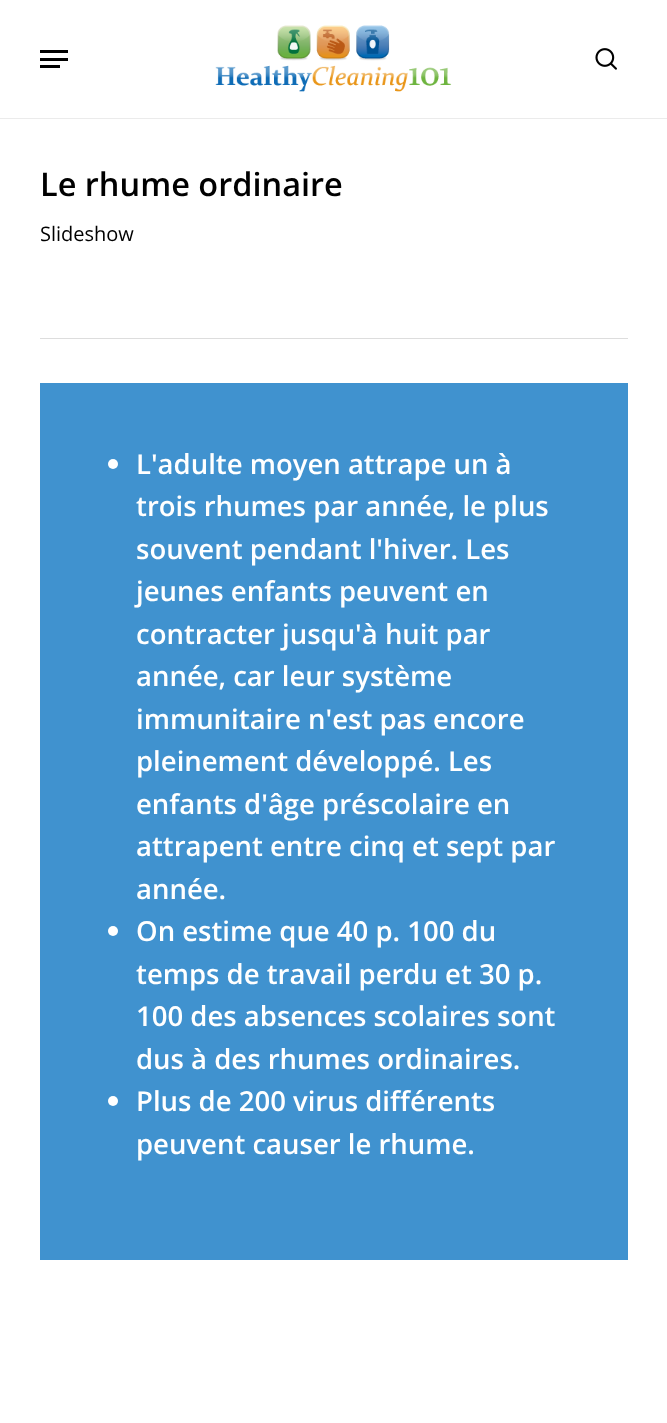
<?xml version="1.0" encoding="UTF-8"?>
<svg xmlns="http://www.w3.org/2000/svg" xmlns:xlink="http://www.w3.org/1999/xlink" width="667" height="1423">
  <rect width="100%" height="100%" fill="#ffffff" />
  <path d="M 0 118 v 1 h 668 v -118 v 117 z" fill="#ebebeb" />
  <image x="215" y="25" width="237" height="67" xlink:href="image1.png" />
  <rect x="40" y="50" width="28" height="3" fill="#000000" />
  <rect x="40" y="65" width="20" height="3" fill="#000000" />
  <rect x="40" y="58" width="28" height="3" fill="#000000" />
  <image x="595" y="48" width="22" height="22" xlink:href="image2.png" />
  <rect x="40" y="338" width="588" height="1" fill="#dddddd" />
  <rect x="40" y="383" width="588" height="877" fill="#4092cf" />
  <circle cx="113" cy="464" r="5" fill="#ffffff" />
  <circle cx="113" cy="931" r="5" fill="#ffffff" />
  <circle cx="113" cy="1101" r="5" fill="#ffffff" />
  <text x="40" y="196" style="font-family: Open Sans; font-size: 32.5px; font-weight: 600; fill: #000000">Le rhume ordinaire</text>
  <text x="40" y="241" style="font-family: Open Sans; font-size: 20px; fill: #000000">Slideshow</text>
  <text x="136" y="474" style="font-family: Open Sans; font-size: 27.5px; font-weight: 600; fill: #ffffff">L'adulte moyen attrape un à</text>
  <text x="136" y="516" style="font-family: Open Sans; font-size: 27.5px; font-weight: 600; fill: #ffffff">trois rhumes par année, le plus</text>
  <text x="136" y="559" style="font-family: Open Sans; font-size: 27.5px; font-weight: 600; fill: #ffffff">souvent pendant l'hiver. Les</text>
  <text x="136" y="601" style="font-family: Open Sans; font-size: 27.5px; font-weight: 600; fill: #ffffff">jeunes enfants peuvent en</text>
  <text x="136" y="644" style="font-family: Open Sans; font-size: 27.5px; font-weight: 600; fill: #ffffff">contracter jusqu'à huit par</text>
  <text x="136" y="686" style="font-family: Open Sans; font-size: 27.5px; font-weight: 600; fill: #ffffff">année, car leur système</text>
  <text x="136" y="729" style="font-family: Open Sans; font-size: 27.5px; font-weight: 600; fill: #ffffff">immunitaire n'est pas encore</text>
  <text x="136" y="771" style="font-family: Open Sans; font-size: 27.5px; font-weight: 600; fill: #ffffff">pleinement développé. Les</text>
  <text x="136" y="814" style="font-family: Open Sans; font-size: 27.5px; font-weight: 600; fill: #ffffff">enfants d'âge préscolaire en</text>
  <text x="136" y="856" style="font-family: Open Sans; font-size: 27.5px; font-weight: 600; fill: #ffffff">attrapent entre cinq et sept par</text>
  <text x="136" y="899" style="font-family: Open Sans; font-size: 27.5px; font-weight: 600; fill: #ffffff">année.</text>
  <text x="136" y="941" style="font-family: Open Sans; font-size: 27.5px; font-weight: 600; fill: #ffffff">On estime que 40 p. 100 du</text>
  <text x="136" y="984" style="font-family: Open Sans; font-size: 27.5px; font-weight: 600; fill: #ffffff">temps de travail perdu et 30 p.</text>
  <text x="136" y="1026" style="font-family: Open Sans; font-size: 27.5px; font-weight: 600; fill: #ffffff">100 des absences scolaires sont</text>
  <text x="136" y="1069" style="font-family: Open Sans; font-size: 27.5px; font-weight: 600; fill: #ffffff">dus à des rhumes ordinaires.</text>
  <text x="136" y="1111" style="font-family: Open Sans; font-size: 27.5px; font-weight: 600; fill: #ffffff">Plus de 200 virus différents</text>
  <text x="136" y="1154" style="font-family: Open Sans; font-size: 27.5px; font-weight: 600; fill: #ffffff">peuvent causer le rhume.</text>
</svg>
